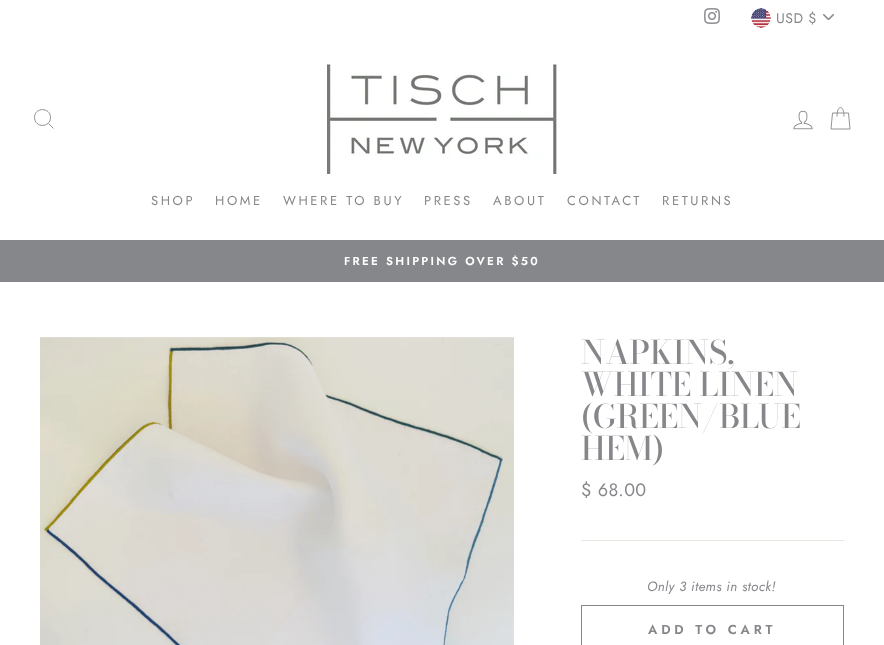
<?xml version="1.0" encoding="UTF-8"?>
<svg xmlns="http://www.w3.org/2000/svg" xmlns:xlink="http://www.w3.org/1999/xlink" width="884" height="645">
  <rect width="100%" height="100%" fill="#ffffff" />
  <image x="704" y="8" width="16" height="16" xlink:href="image1.png" />
  <image x="823" y="14" width="11" height="6" xlink:href="image2.png" />
  <image x="751" y="8" width="20" height="20" xlink:href="image3.png" />
  <path d="M 50.5 117.5 c 0 10.5 -16 10.5 -16 0 c 0 -10.5 16 -10.5 16 0 z m 3 11 l -5 -5" fill="none" stroke="#86878b" stroke-width="0.9" />
  <image x="327" y="64" width="230" height="110" xlink:href="image4.png" />
  <image x="793" y="110" width="20" height="20" xlink:href="image5.png" />
  <path d="M 837 116.5 c 0 -12 7 -12 7 0 m -11.5 -3.5 h 16 l 1.5 16 h -19 z" fill="none" stroke="#86878b" stroke-width="0.9" />
  <rect y="240" width="884" height="42" fill="#86878b" />
  <image x="40" y="337" width="474" height="308" xlink:href="image6.png" />
  <rect x="581" y="540" width="263" height="1" fill="#e8e8e1" />
  <rect x="581.5" y="605.5" width="262" height="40" fill="none" stroke="#86878b" />
  <text x="776" y="23" style="font-family: Jost; font-size: 14px; letter-spacing: 0.5px; fill: #86878b">USD $</text>
  <text x="151" y="205" style="font-family: Jost; font-size: 13px; letter-spacing: 2.6px; fill: #86878b">SHOP</text>
  <text x="215" y="205" style="font-family: Jost; font-size: 13px; letter-spacing: 2.6px; fill: #86878b">HOME</text>
  <text x="283" y="205" style="font-family: Jost; font-size: 13px; letter-spacing: 2.6px; fill: #86878b">WHERE TO BUY</text>
  <text x="424" y="205" style="font-family: Jost; font-size: 13px; letter-spacing: 2.6px; fill: #86878b">PRESS</text>
  <text x="493" y="205" style="font-family: Jost; font-size: 13px; letter-spacing: 2.6px; fill: #86878b">ABOUT</text>
  <text x="567" y="205" style="font-family: Jost; font-size: 13px; letter-spacing: 2.6px; fill: #86878b">CONTACT</text>
  <text x="662" y="205" style="font-family: Jost; font-size: 13px; letter-spacing: 2.6px; fill: #86878b">RETURNS</text>
  <text x="344" y="265" style="font-family: Jost; font-size: 11.6px; font-weight: 600; letter-spacing: 2.3px; fill: #ffffff">FREE SHIPPING OVER $50</text>
  <text x="581" y="364" style="font-family: Bodoni Moda; font-size: 32.25px; font-weight: 500; fill: #86878b">NAPKINS,</text>
  <text x="581" y="396" style="font-family: Bodoni Moda; font-size: 32.25px; font-weight: 500; fill: #86878b">WHITE LINEN</text>
  <text x="581" y="428" style="font-family: Bodoni Moda; font-size: 32.25px; font-weight: 500; fill: #86878b">(GREEN/BLUE</text>
  <text x="581" y="460" style="font-family: Bodoni Moda; font-size: 32.25px; font-weight: 500; fill: #86878b">HEM)</text>
  <text x="581" y="496" style="font-family: Jost; font-size: 18px; letter-spacing: 0.4px; fill: #86878b">$ 68.00</text>
  <text x="647" y="591" style="font-family: Jost; font-size: 13.5px; font-style: italic; letter-spacing: 0.4px; fill: #86878b">Only 3 items in stock!</text>
  <text x="648" y="634" style="font-family: Jost; font-size: 13px; font-weight: 600; letter-spacing: 3.9px; fill: #86878b">ADD TO CART</text>
</svg>
